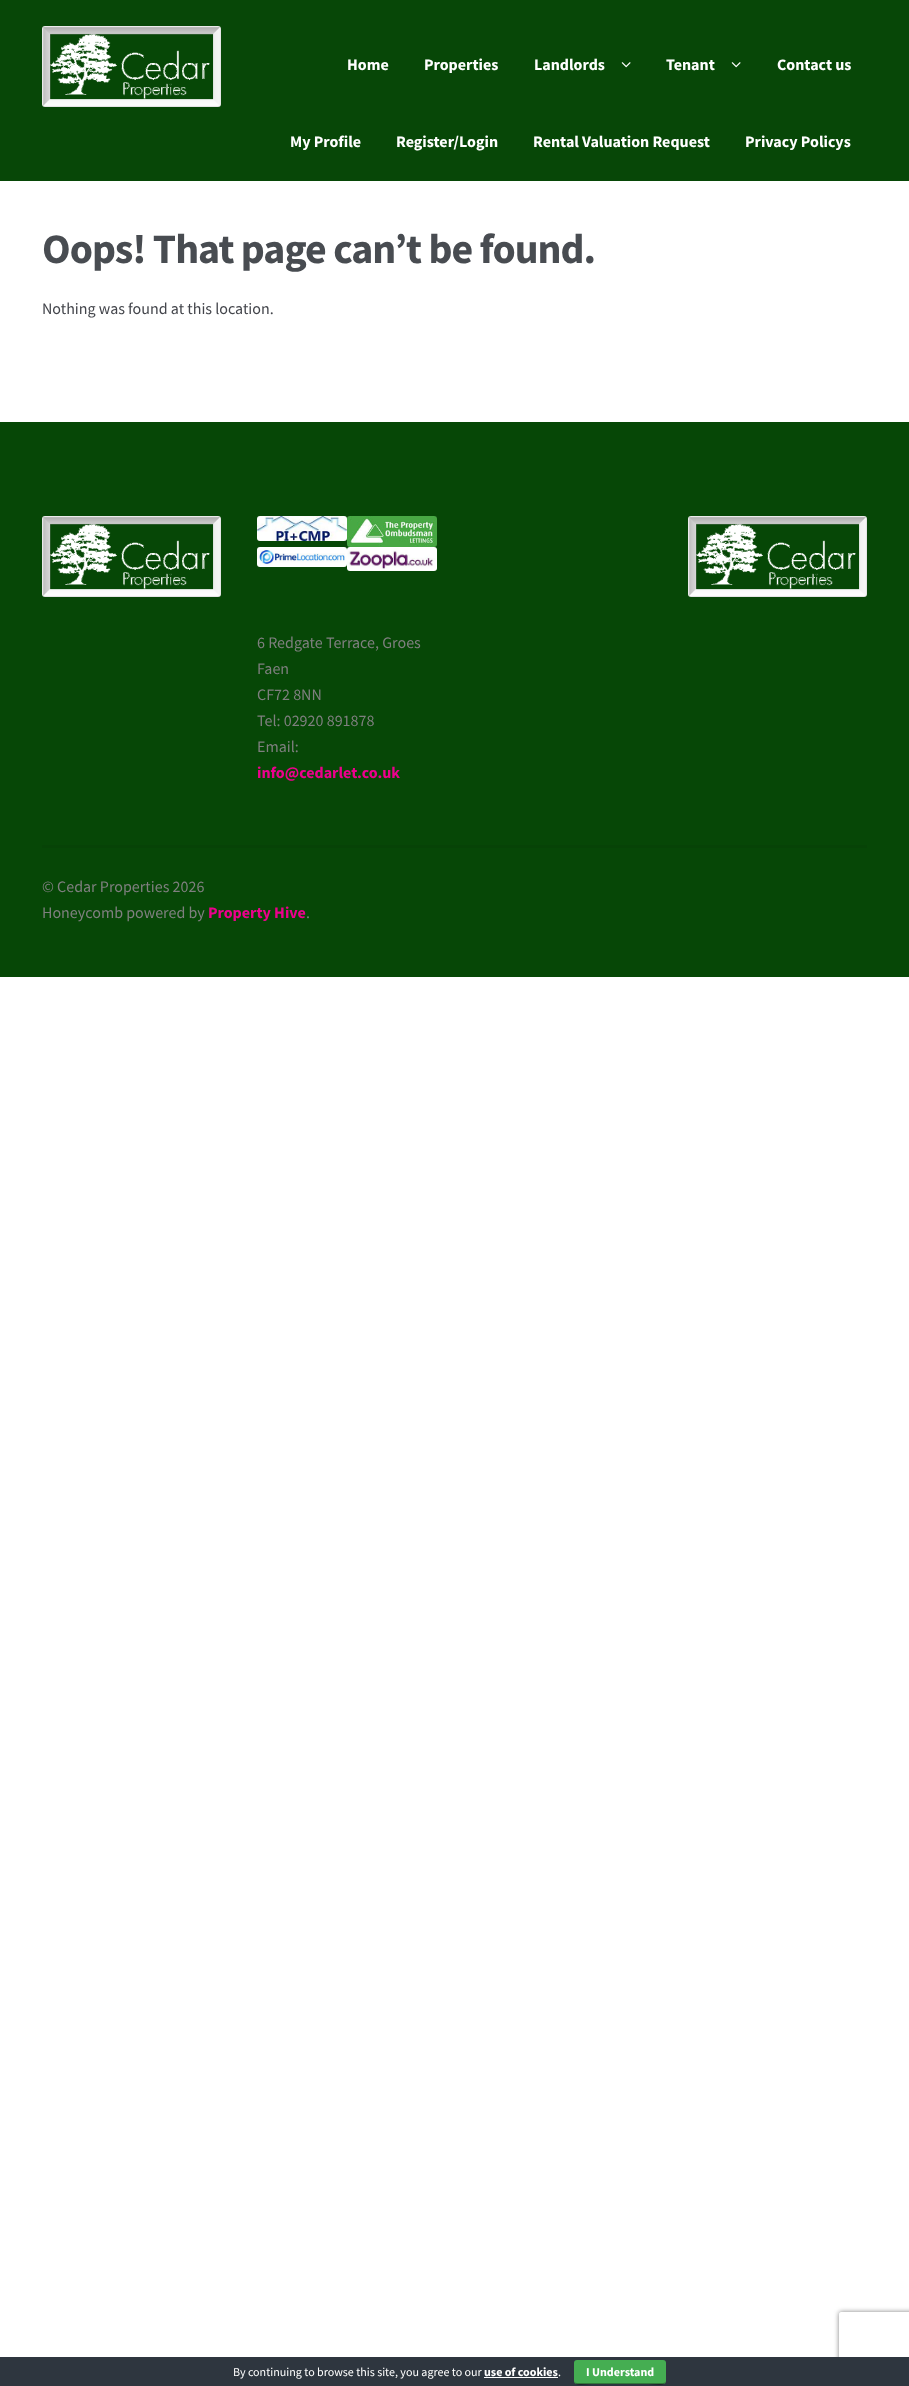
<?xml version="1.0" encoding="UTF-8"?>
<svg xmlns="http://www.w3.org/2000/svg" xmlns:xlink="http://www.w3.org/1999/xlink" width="909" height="2386">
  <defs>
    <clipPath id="clip1"><path d="M 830 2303 h 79 v 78 h -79 z m 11 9 h 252 c 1 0 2 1 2 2 v 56 c 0 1 -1 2 -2 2 h -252 c -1 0 -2 -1 -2 -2 v -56 c 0 -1 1 -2 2 -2 z" clip-rule="evenodd" /></clipPath>
  </defs>
  <rect width="100%" height="100%" fill="#ffffff" />
  <rect width="909" height="181" fill="#074707" />
  <image x="42" y="26" width="179" height="81" xlink:href="image1.png" />
  <image x="621" y="62" width="10" height="6" xlink:href="image2.png" />
  <image x="731" y="62" width="10" height="6" xlink:href="image2.png" />
  <rect y="422" width="909" height="555" fill="#064706" />
  <rect x="42" y="845" width="825" height="3" fill="#064306" />
  <image x="42" y="516" width="179" height="81" xlink:href="image3.png" />
  <image x="688" y="516" width="179" height="81" xlink:href="image3.png" />
  <image x="257" y="516" width="90" height="25" xlink:href="image4.png" />
  <image x="347" y="516" width="90" height="31" xlink:href="image5.png" />
  <image x="257" y="547" width="90" height="20" xlink:href="image6.png" />
  <image x="347" y="547" width="90" height="24" xlink:href="image7.png" />
  <g clip-path="url(#clip1)">
    <rect x="839" y="2312" width="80" height="60" rx="2" fill="#808080" filter="blur(2.5px)" />
  </g>
  <rect y="2357" width="909" height="29" fill="#2e363f" />
  <rect x="484" y="2377" width="74" height="1" fill="#ffffff" />
  <rect x="574" y="2360" width="92" height="24" rx="3" fill="#45ae52" />
  <path d="M 574 2380 c 0 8 14 4 17 4 h 58 c 3 0 17 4 17 -4 c 0 2 -1 3 -3 3 h -86 c -2 0 -3 -1 -3 -3 z" fill="#000000" fill-opacity="0.3" />
  <text x="347" y="70" style="font-family: Source Sans Pro; font-size: 16px; font-weight: bold; fill: #ffffff">Home</text>
  <text x="424" y="70" style="font-family: Source Sans Pro; font-size: 16px; font-weight: bold; fill: #ffffff">Properties</text>
  <text x="534" y="70" style="font-family: Source Sans Pro; font-size: 16px; font-weight: bold; fill: #ffffff">Landlords</text>
  <text x="666" y="70" style="font-family: Source Sans Pro; font-size: 16px; font-weight: bold; fill: #ffffff">Tenant</text>
  <text x="777" y="70" style="font-family: Source Sans Pro; font-size: 16px; font-weight: bold; fill: #ffffff">Contact us</text>
  <text x="290" y="147" style="font-family: Source Sans Pro; font-size: 16px; font-weight: bold; fill: #ffffff">My Profile</text>
  <text x="396" y="147" style="font-family: Source Sans Pro; font-size: 16px; font-weight: bold; fill: #ffffff">Register/Login</text>
  <text x="533" y="147" style="font-family: Source Sans Pro; font-size: 16px; font-weight: bold; fill: #ffffff">Rental Valuation Request</text>
  <text x="745" y="147" style="font-family: Source Sans Pro; font-size: 16px; font-weight: bold; fill: #ffffff">Privacy Policys</text>
  <text x="42" y="263" style="font-family: Source Sans Pro; font-size: 41.9px; font-weight: bold; letter-spacing: -1px; fill: #484c51">Oops! That page can’t be found.</text>
  <text x="42" y="314" style="font-family: Source Sans Pro; font-size: 16px; fill: #43454b">Nothing was found at this location.</text>
  <text x="257" y="648" style="font-family: Source Sans Pro; font-size: 16px; fill: #7f7f7f">6 Redgate Terrace, Groes</text>
  <text x="257" y="674" style="font-family: Source Sans Pro; font-size: 16px; fill: #7f7f7f">Faen</text>
  <text x="257" y="700" style="font-family: Source Sans Pro; font-size: 16px; fill: #7f7f7f">CF72 8NN</text>
  <text x="257" y="726" style="font-family: Source Sans Pro; font-size: 16px; fill: #7f7f7f">Tel: 02920 891878</text>
  <text x="257" y="752" style="font-family: Source Sans Pro; font-size: 16px; fill: #7f7f7f">Email:</text>
  <text x="257" y="778" style="font-family: Source Sans Pro; font-size: 16px; font-weight: bold; fill: #ec008d">info@cedarlet.co.uk</text>
  <text x="42" y="892" style="font-family: Source Sans Pro; font-size: 16px; fill: #7f7f7f">© Cedar Properties 2026</text>
  <text x="42" y="918" style="font-family: Source Sans Pro; font-size: 16px; fill: #7f7f7f">Honeycomb powered by</text>
  <text x="208" y="918" style="font-family: Source Sans Pro; font-size: 16px; font-weight: bold; fill: #ec008d">Property Hive</text>
  <text x="306" y="918" style="font-family: Source Sans Pro; font-size: 16px; fill: #7f7f7f">.</text>
  <text x="233" y="2376" style="font-family: Source Sans Pro; font-size: 12px; fill: #ffffff">By continuing to browse this site, you agree to our</text>
  <text x="484" y="2376" style="font-family: Source Sans Pro; font-size: 12px; font-weight: bold; fill: #ffffff">use of cookies</text>
  <text x="558" y="2376" style="font-family: Source Sans Pro; font-size: 12px; fill: #ffffff">.</text>
  <text x="586" y="2376" style="font-family: Source Sans Pro; font-size: 12px; font-weight: bold; fill: #ffffff">I Understand</text>
</svg>
